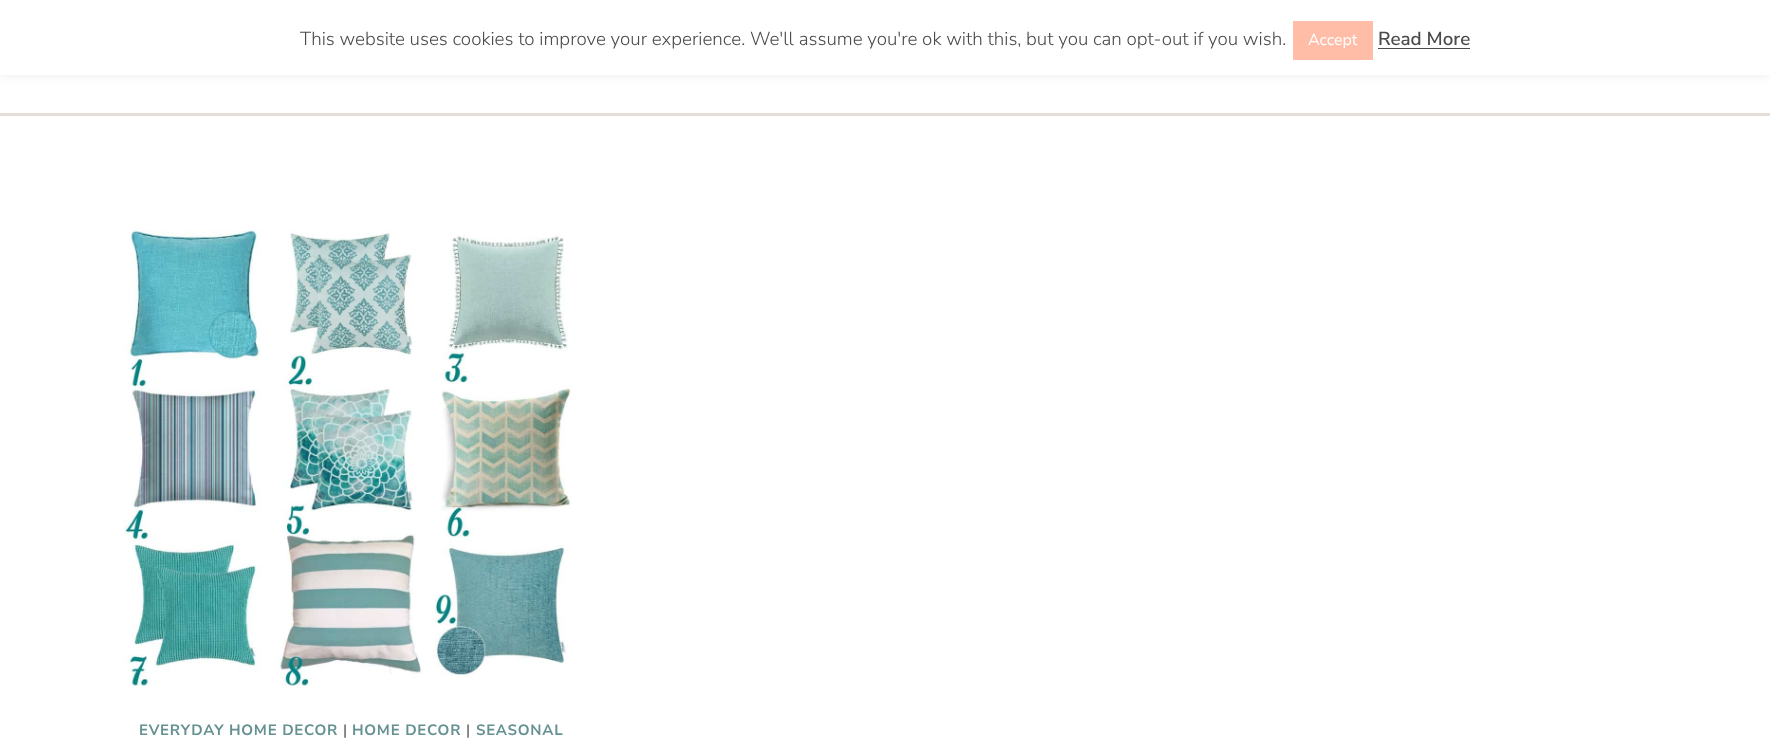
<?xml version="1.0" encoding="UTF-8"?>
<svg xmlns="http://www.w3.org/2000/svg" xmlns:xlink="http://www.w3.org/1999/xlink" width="1770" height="739">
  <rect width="100%" height="100%" fill="#ffffff" />
  <rect y="-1" width="1770" height="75" fill="#acabab" fill-opacity="0.3" filter="blur(6px)" />
  <rect width="1770" height="75" fill="#ffffff" />
  <rect x="1293" y="21" width="80" height="39" fill="#ffbda8" />
  <rect x="1378" y="48" width="92" height="1" fill="#4b4b4b" />
  <rect y="113" width="1770" height="3" fill="#e6ded8" />
  <image x="124" y="230" width="448" height="456" xlink:href="image1.png" />
  <text x="300" y="45" style="font-family: Nunito Sans; font-size: 18.75px; font-weight: 300; fill: #4b4b4b">This website uses cookies to improve your experience. We'll assume you're ok with this, but you can opt-out if you wish.</text>
  <text x="1308" y="45" style="font-family: Nunito Sans; font-size: 16px; fill: #ffffff">Accept</text>
  <text x="1378" y="45" style="font-family: Nunito Sans; font-size: 18.75px; font-weight: 600; fill: #4b4b4b">Read More</text>
  <text x="139" y="735" style="font-family: Nunito Sans; font-size: 15px; font-weight: bold; letter-spacing: 0.75px; fill: #659192">EVERYDAY HOME DECOR</text>
  <text x="343" y="735" style="font-family: Nunito Sans; font-size: 15px; font-weight: 600; letter-spacing: 0.75px; fill: #666666">|</text>
  <text x="352" y="735" style="font-family: Nunito Sans; font-size: 15px; font-weight: bold; letter-spacing: 0.75px; fill: #659192">HOME DECOR</text>
  <text x="466" y="735" style="font-family: Nunito Sans; font-size: 15px; font-weight: 600; letter-spacing: 0.75px; fill: #666666">|</text>
  <text x="476" y="735" style="font-family: Nunito Sans; font-size: 15px; font-weight: bold; letter-spacing: 0.75px; fill: #659192">SEASONAL</text>
</svg>
